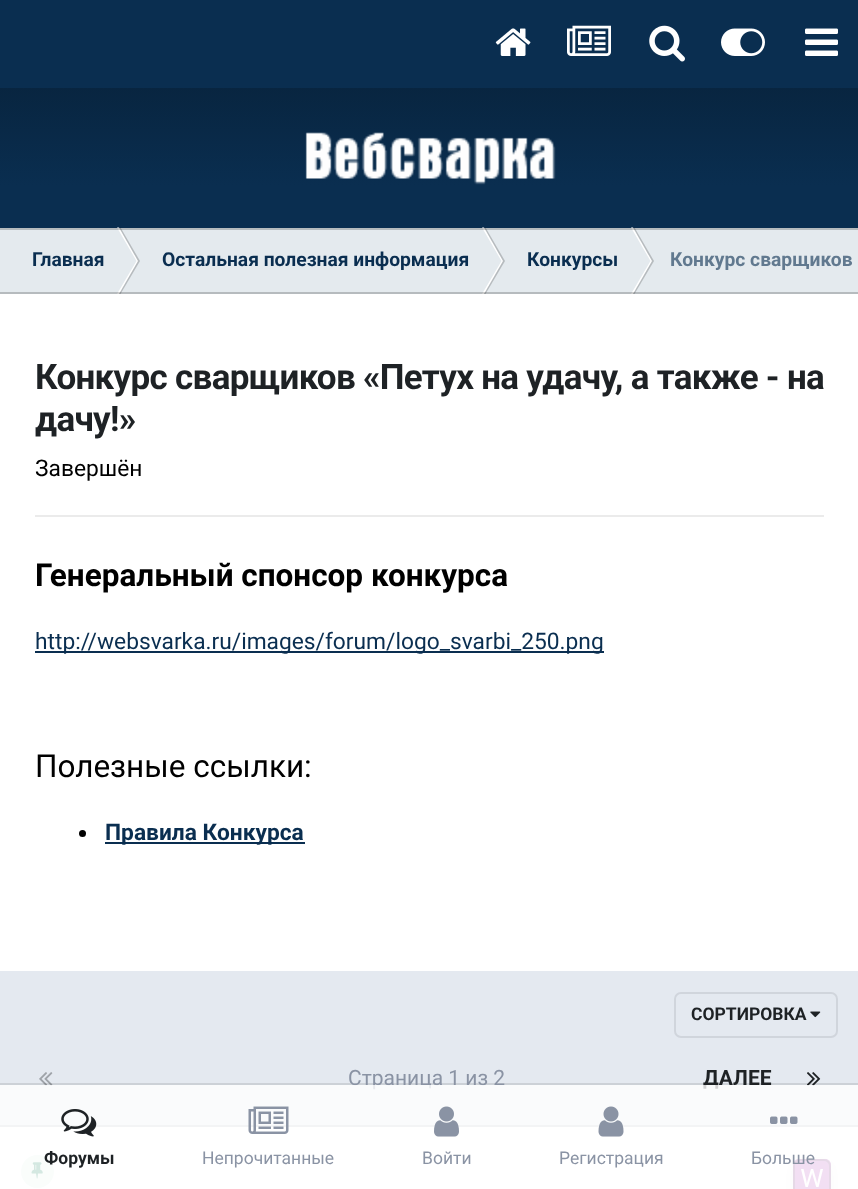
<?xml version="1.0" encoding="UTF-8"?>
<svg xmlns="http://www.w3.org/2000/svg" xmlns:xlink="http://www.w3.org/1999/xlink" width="858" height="1189">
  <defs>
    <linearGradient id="g1" gradientUnits="userSpaceOnUse" x1="430" y1="87" x2="430" y2="228"><stop offset="0" stop-color="#082540" /><stop offset="0.7" stop-color="#0a2e50" /></linearGradient>
    <clipPath id="clip1"><path d="M 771 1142 h 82 v 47 h -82 z m 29 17 h 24 c 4 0 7 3 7 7 v 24 c 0 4 -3 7 -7 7 h -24 c -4 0 -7 -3 -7 -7 v -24 c 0 -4 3 -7 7 -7 z" clip-rule="evenodd" /></clipPath>
  </defs>
  <rect width="100%" height="100%" fill="#0a2e50" />
  <image x="495" y="28" width="36" height="28" xlink:href="image1.png" />
  <image x="567" y="25" width="44" height="31" xlink:href="image2.png" />
  <image x="649" y="25" width="36" height="37" xlink:href="image3.png" />
  <image x="721" y="28" width="44" height="28" xlink:href="image4.png" />
  <image x="805" y="28" width="33" height="28" xlink:href="image5.png" />
  <rect y="88" width="858" height="140" fill="url(#g1)" />
  <image x="305" y="132" width="251" height="53" xlink:href="image6.png" />
  <rect y="294" width="858" height="895" fill="#ffffff" />
  <rect y="228" width="858" height="66" fill="#e4eaee" />
  <path d="M 117 227.5 h 2 l 19 33.5 h -1.5 z" fill="#ffffff" />
  <path d="M 119 227.5 h 1.5 l 19.5 33.5 h -2 z" fill="#000000" fill-opacity="0.2" />
  <path d="M 482 227.5 h 2 l 19 33.5 h -1.5 z" fill="#ffffff" />
  <path d="M 484 227.5 h 1.5 l 19.5 33.5 h -2 z" fill="#000000" fill-opacity="0.2" />
  <path d="M 631 227.5 h 2 l 19 33.5 h -1.5 z" fill="#ffffff" />
  <path d="M 633 227.5 h 1.5 l 19.5 33.5 h -2 z" fill="#000000" fill-opacity="0.2" />
  <rect y="228" width="858" height="2" fill="#000000" fill-opacity="0.2" />
  <path d="M 117 294 h 2 l 19 -33 h -1.5 z" fill="#ffffff" />
  <path d="M 119 294 h 1.5 l 19.5 -33 h -2 z" fill="#000000" fill-opacity="0.2" />
  <path d="M 482 294 h 2 l 19 -33 h -1.5 z" fill="#ffffff" />
  <path d="M 484 294 h 1.5 l 19.5 -33 h -2 z" fill="#000000" fill-opacity="0.2" />
  <path d="M 631 294 h 2 l 19 -33 h -1.5 z" fill="#ffffff" />
  <path d="M 633 294 h 1.5 l 19.5 -33 h -2 z" fill="#000000" fill-opacity="0.2" />
  <rect y="292" width="858" height="2" fill="#000000" fill-opacity="0.2" />
  <rect x="35" y="515" width="789" height="2" fill="#ebebeb" />
  <rect x="35" y="651" width="569" height="2" fill="#0a2e50" />
  <circle cx="82.5" cy="833.5" r="3.5" fill="#000000" />
  <rect x="105" y="842" width="200" height="2" fill="#0a2e50" />
  <rect y="971" width="858" height="154" fill="#e4e9f0" />
  <rect y="1125" width="858" height="2" fill="#c2c6cc" />
  <image x="810" y="1011" width="11" height="7" xlink:href="image7.png" />
  <rect x="675" y="993" width="162" height="44" rx="6" fill="none" stroke="#d0d5dc" stroke-width="2" />
  <image x="39" y="1072" width="14" height="14" xlink:href="image8.png" />
  <image x="807" y="1072" width="14" height="14" xlink:href="image9.png" />
  <circle cx="37.5" cy="1171.5" r="16.5" fill="#e3f3ec" />
  <image x="31" y="1162" width="12" height="17" xlink:href="image10.png" />
  <image x="793" y="1159" width="38" height="30" xlink:href="image11.png" />
  <g clip-path="url(#clip1)">
    <rect x="793" y="1164" width="38" height="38" rx="7" fill="#000000" fill-opacity="0.1" filter="blur(7px)" />
  </g>
  <rect x="794" y="1160" width="36" height="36" rx="6" fill="none" stroke="#000000" stroke-opacity="0.3" stroke-width="2" />
  <rect y="1083" width="858" height="2" fill="#000000" fill-opacity="0.1" />
  <text x="32" y="266" style="font-family: Roboto; font-size: 19.25px; font-weight: bold; fill: #0a2e50">Главная</text>
  <text x="162" y="266" style="font-family: Roboto; font-size: 19.25px; font-weight: bold; fill: #0a2e50">Остальная полезная информация</text>
  <text x="527" y="266" style="font-family: Roboto; font-size: 19.25px; font-weight: bold; fill: #0a2e50">Конкурсы</text>
  <text x="670" y="266" style="font-family: Roboto; font-size: 19.25px; font-weight: bold; fill: #61798f">Конкурс сварщиков</text>
  <text x="35" y="389" style="font-family: Roboto; font-size: 35px; font-weight: bold; letter-spacing: -0.7px; fill: #1e2225">Конкурс сварщиков «Петух на удачу, а также - на</text>
  <text x="35" y="431" style="font-family: Roboto; font-size: 35px; font-weight: bold; letter-spacing: -0.7px; fill: #1e2225">дачу!»</text>
  <text x="35" y="476" style="font-family: Roboto; font-size: 22.75px; fill: #000000">Завершён</text>
  <text x="35" y="586" style="font-family: Roboto; font-size: 31.5px; font-weight: bold; fill: #000000">Генеральный спонсор конкурса</text>
  <text x="35" y="649" style="font-family: Roboto; font-size: 22.75px; fill: #0a2e50">http://websvarka.ru/images/forum/logo_svarbi_250.png</text>
  <text x="35" y="777" style="font-family: Roboto; font-size: 31.5px; fill: #000000">Полезные ссылки:</text>
  <text x="105" y="840" style="font-family: Roboto; font-size: 22.75px; font-weight: bold; fill: #0a2e50">Правила Конкурса</text>
  <text x="691" y="1020" style="font-family: Roboto; font-size: 17.5px; font-weight: bold; fill: #1e2225">СОРТИРОВКА</text>
  <text x="348" y="1085" style="font-family: Roboto; font-size: 21px; fill: #8a93a4">Страница 1 из 2</text>
  <text x="703" y="1085" style="font-family: Roboto; font-size: 21px; font-weight: bold; fill: #1e2225">ДАЛЕЕ</text>
  <rect y="1085" width="858" height="104" fill="#ffffff" fill-opacity="0.8" />
  <image x="61" y="1109" width="36" height="28" xlink:href="image12.png" />
  <text x="44" y="1164" style="font-family: Roboto; font-size: 17.5px; font-weight: bold; fill: #1e2225">Форумы</text>
  <image x="248" y="1106" width="41" height="28" xlink:href="image13.png" />
  <text x="202" y="1164" style="font-family: Roboto; font-size: 17.5px; fill: #8a93a4">Непрочитанные</text>
  <image x="434" y="1106" width="25" height="31" xlink:href="image14.png" />
  <text x="422" y="1164" style="font-family: Roboto; font-size: 17.5px; fill: #8a93a4">Войти</text>
  <image x="598" y="1106" width="26" height="31" xlink:href="image15.png" />
  <text x="559" y="1164" style="font-family: Roboto; font-size: 17.5px; fill: #8a93a4">Регистрация</text>
  <image x="770" y="1116" width="28" height="8" xlink:href="image16.png" />
  <text x="751" y="1164" style="font-family: Roboto; font-size: 17.5px; fill: #8a93a4">Больше</text>
</svg>
